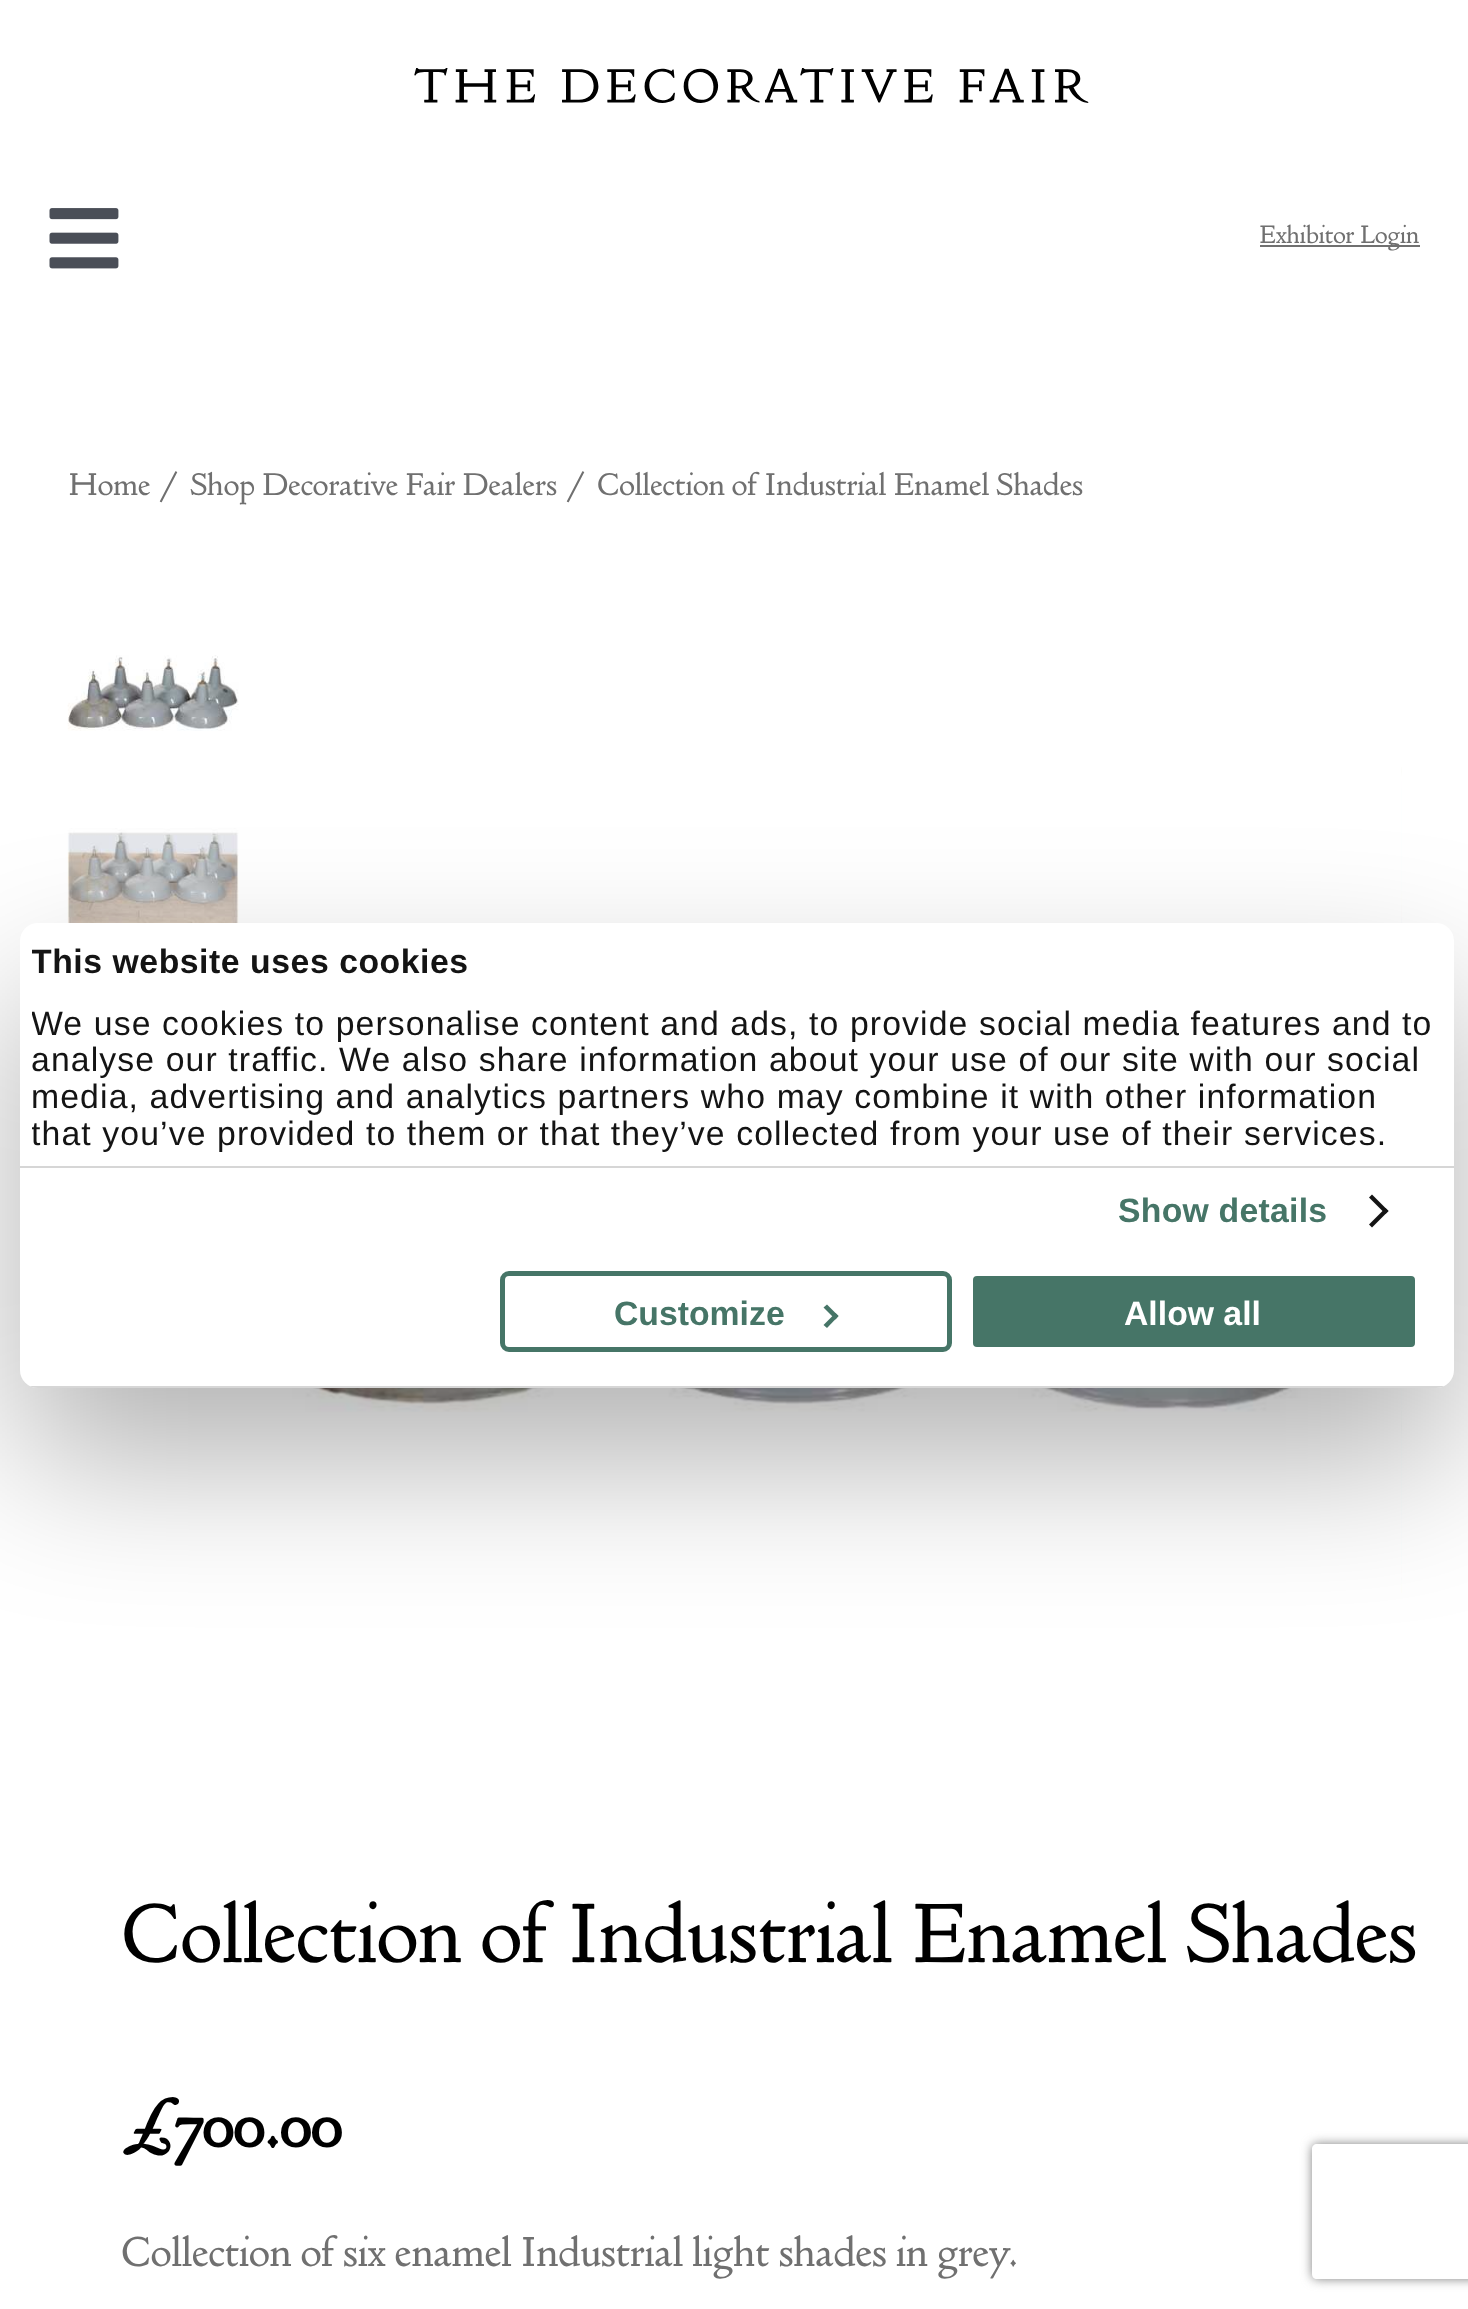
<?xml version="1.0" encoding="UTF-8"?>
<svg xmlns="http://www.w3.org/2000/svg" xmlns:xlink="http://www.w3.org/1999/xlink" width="1468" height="2309">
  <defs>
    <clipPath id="clip1"><rect x="20" y="923" width="1434" height="465" rx="18" /></clipPath>
    <clipPath id="clip2"><path d="M 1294 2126 h 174 v 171 h -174 z m 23 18 h 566 c 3 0 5 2 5 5 v 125 c 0 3 -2 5 -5 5 h -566 c -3 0 -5 -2 -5 -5 v -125 c 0 -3 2 -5 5 -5 z" clip-rule="evenodd" /></clipPath>
    <clipPath id="clip3"><rect x="32" y="934" width="1408" height="218" /></clipPath>
  </defs>
  <rect width="100%" height="100%" fill="#ffffff" />
  <image x="414" y="68" width="675" height="35" xlink:href="image1.png" />
  <image x="49" y="208" width="70" height="61" xlink:href="image2.png" />
  <rect x="1260" y="245" width="160" height="2" fill="#707070" />
  <image x="67" y="655" width="172" height="76" xlink:href="image3.png" />
  <image x="67" y="828" width="172" height="95" xlink:href="image4.png" />
  <image x="268" y="1388" width="1127" height="24" xlink:href="image5.png" />
  <image x="1401" y="767" width="1" height="826" xlink:href="image6.png" />
  <rect x="20" y="995" width="1434" height="465" rx="18" fill="#000000" fill-opacity="0.3" filter="blur(76.5px)" />
  <rect x="20" y="923" width="1434" height="465" rx="18" fill="#ffffff" />
  <rect x="20" y="1166" width="1434" height="2" fill="#d6d6d6" />
  <path d="M 1372 1194.5 l 16.5 16.5 l -3 3 l -16.5 -16.5 z" fill="#141414" />
  <path d="M 1385.5 1208 l 3 3 l -16.5 16.5 l -3 -3 z" fill="#141414" />
  <g clip-path="url(#clip1)">
    <rect x="30" y="1386" width="1414" height="2" fill="#d6d6d6" />
  </g>
  <rect x="502.5" y="1273.5" width="447" height="76" rx="6.5" fill="none" stroke="#467567" stroke-width="5" />
  <path d="M 827 1304.5 l 11.5 11.5 l -3 3.5 l -12 -12 z" fill="#467567" />
  <path d="M 835.5 1313 l 3 3 l -11.5 12 l -3.5 -3 z" fill="#467567" />
  <rect x="970.5" y="1273.5" width="447" height="76" rx="6.5" fill="#467567" stroke="#ffffff" stroke-width="5" />
  <g clip-path="url(#clip2)">
    <rect x="1312" y="2144" width="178" height="135" rx="5" fill="#808080" filter="blur(5.5px)" />
  </g>
  <text x="1259" y="243" style="font-family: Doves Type; font-size: 27px; fill: #707070">Exhibitor Login</text>
  <text x="68" y="495" style="font-family: Doves Type; font-size: 33.75px; fill: #707070">Home</text>
  <text x="161" y="495" style="font-family: Doves Type; font-size: 33.75px; fill: #707070">/</text>
  <text x="190" y="495" style="font-family: Doves Type; font-size: 33.75px; fill: #707070">Shop Decorative Fair Dealers</text>
  <text x="568" y="495" style="font-family: Doves Type; font-size: 33.75px; fill: #707070">/</text>
  <text x="597" y="495" style="font-family: Doves Type; font-size: 33.75px; fill: #707070">Collection of Industrial Enamel Shades</text>
  <text x="121" y="1962" style="font-family: Doves Type; font-size: 90px; fill: #000000">Collection of Industrial Enamel Shades</text>
  <text x="121" y="2147" style="font-family: Doves Type; font-size: 67.5px; font-weight: bold; fill: #000000">£</text>
  <text x="174" y="2147" style="font-family: Doves Type; font-size: 67.5px; font-weight: bold; fill: #000000">700.00</text>
  <text x="121" y="2266" style="font-family: Doves Type; font-size: 45px; fill: #707070">Collection of six enamel Industrial light shades in grey.</text>
  <g clip-path="url(#clip3)">
    <text x="31" y="973" style="font-family: Liberation Sans; font-size: 33.75px; font-weight: bold; letter-spacing: 0.55px; fill: #141414">This website uses cookies</text>
    <text x="31" y="1035" style="font-family: Liberation Sans; font-size: 33.75px; letter-spacing: 1.12px; fill: #141414">We use cookies to personalise content and ads, to provide social media features and to</text>
  </g>
  <text x="31" y="1071" style="font-family: Liberation Sans; font-size: 33.75px; letter-spacing: 1.12px; fill: #141414">analyse our traffic. We also share information about your use of our site with our social</text>
  <text x="31" y="1108" style="font-family: Liberation Sans; font-size: 33.75px; letter-spacing: 1.12px; fill: #141414">media, advertising and analytics partners who may combine it with other information</text>
  <g clip-path="url(#clip3)">
    <text x="31" y="1145" style="font-family: Liberation Sans; font-size: 33.75px; letter-spacing: 1.12px; fill: #141414">that you’ve provided to them or that they’ve collected from your use of their services.</text>
  </g>
  <text x="1118" y="1222" style="font-family: Liberation Sans; font-size: 33.75px; font-weight: bold; letter-spacing: 0.25px; fill: #467567">Show details</text>
  <text x="614" y="1325" style="font-family: Liberation Sans; font-size: 33.75px; font-weight: bold; fill: #467567">Customize</text>
  <text x="1124" y="1325" style="font-family: Liberation Sans; font-size: 33.75px; font-weight: bold; fill: #ffffff">Allow all</text>
</svg>
